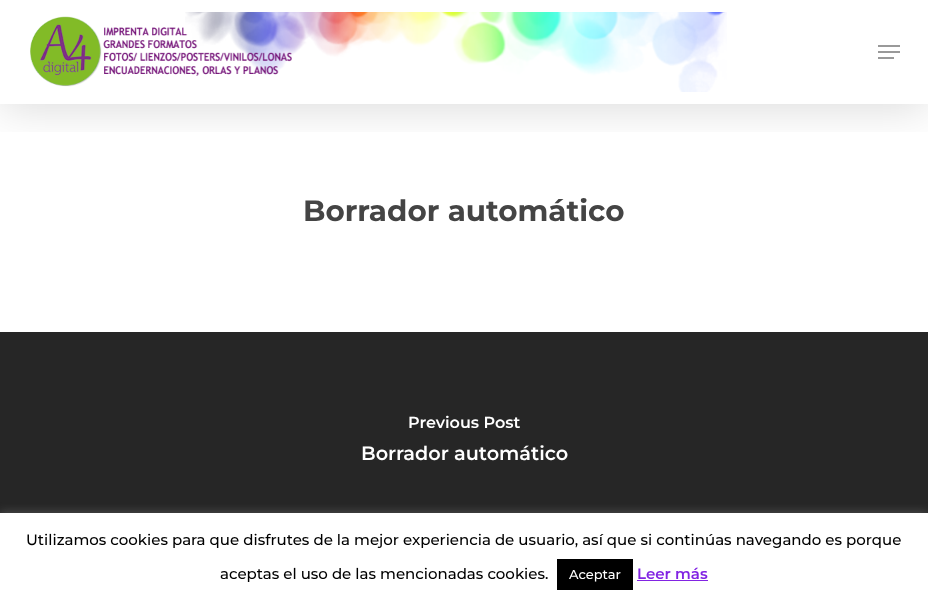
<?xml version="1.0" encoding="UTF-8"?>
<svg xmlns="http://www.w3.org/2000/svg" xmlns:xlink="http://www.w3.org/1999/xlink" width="928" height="602">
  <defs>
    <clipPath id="clip1"><rect x="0" y="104" width="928" height="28" /></clipPath>
  </defs>
  <rect width="100%" height="100%" fill="#ffffff" />
  <g clip-path="url(#clip1)">
    <rect y="3" width="928" height="104" fill="#000000" fill-opacity="0.15" filter="blur(22.5px)" />
  </g>
  <image x="185" y="12" width="542" height="80" xlink:href="image1.png" />
  <image x="30" y="16" width="262" height="71" xlink:href="image2.png" />
  <rect x="878" y="45" width="22" height="2" fill="#999999" />
  <rect x="878" y="57" width="16" height="2" fill="#999999" />
  <rect x="878" y="51" width="22" height="2" fill="#999999" />
  <rect y="332" width="928" height="181" fill="#262626" />
  <rect y="512" width="928" height="89" fill="#acabab" fill-opacity="0.3" filter="blur(5px)" />
  <rect y="513" width="928" height="89" fill="#ffffff" />
  <rect x="557" y="559" width="76" height="31" fill="#000000" />
  <rect x="637" y="580" width="71" height="1" fill="#8224e3" />
  <text x="303" y="221" style="font-family: Montserrat; font-size: 29.4px; font-weight: bold; fill: #444444">Borrador automático</text>
  <text x="408" y="428" style="font-family: Montserrat; font-size: 16px; font-weight: 600; fill: #ffffff">Previous Post</text>
  <text x="361" y="460" style="font-family: Montserrat; font-size: 19.25px; font-weight: 600; fill: #ffffff">Borrador automático</text>
  <text x="26" y="545" style="font-family: Montserrat; font-size: 15px; font-weight: 500; fill: #000000">Utilizamos cookies para que disfrutes de la mejor experiencia de usuario, así que si continúas navegando es porque</text>
  <text x="220" y="579" style="font-family: Montserrat; font-size: 15px; font-weight: 500; fill: #000000">aceptas el uso de las mencionadas cookies.</text>
  <text x="569" y="579" style="font-family: Montserrat; font-size: 13px; font-weight: 500; fill: #ffffff">Aceptar</text>
  <text x="637" y="579" style="font-family: Montserrat; font-size: 15px; font-weight: 600; fill: #8224e3">Leer más</text>
</svg>
